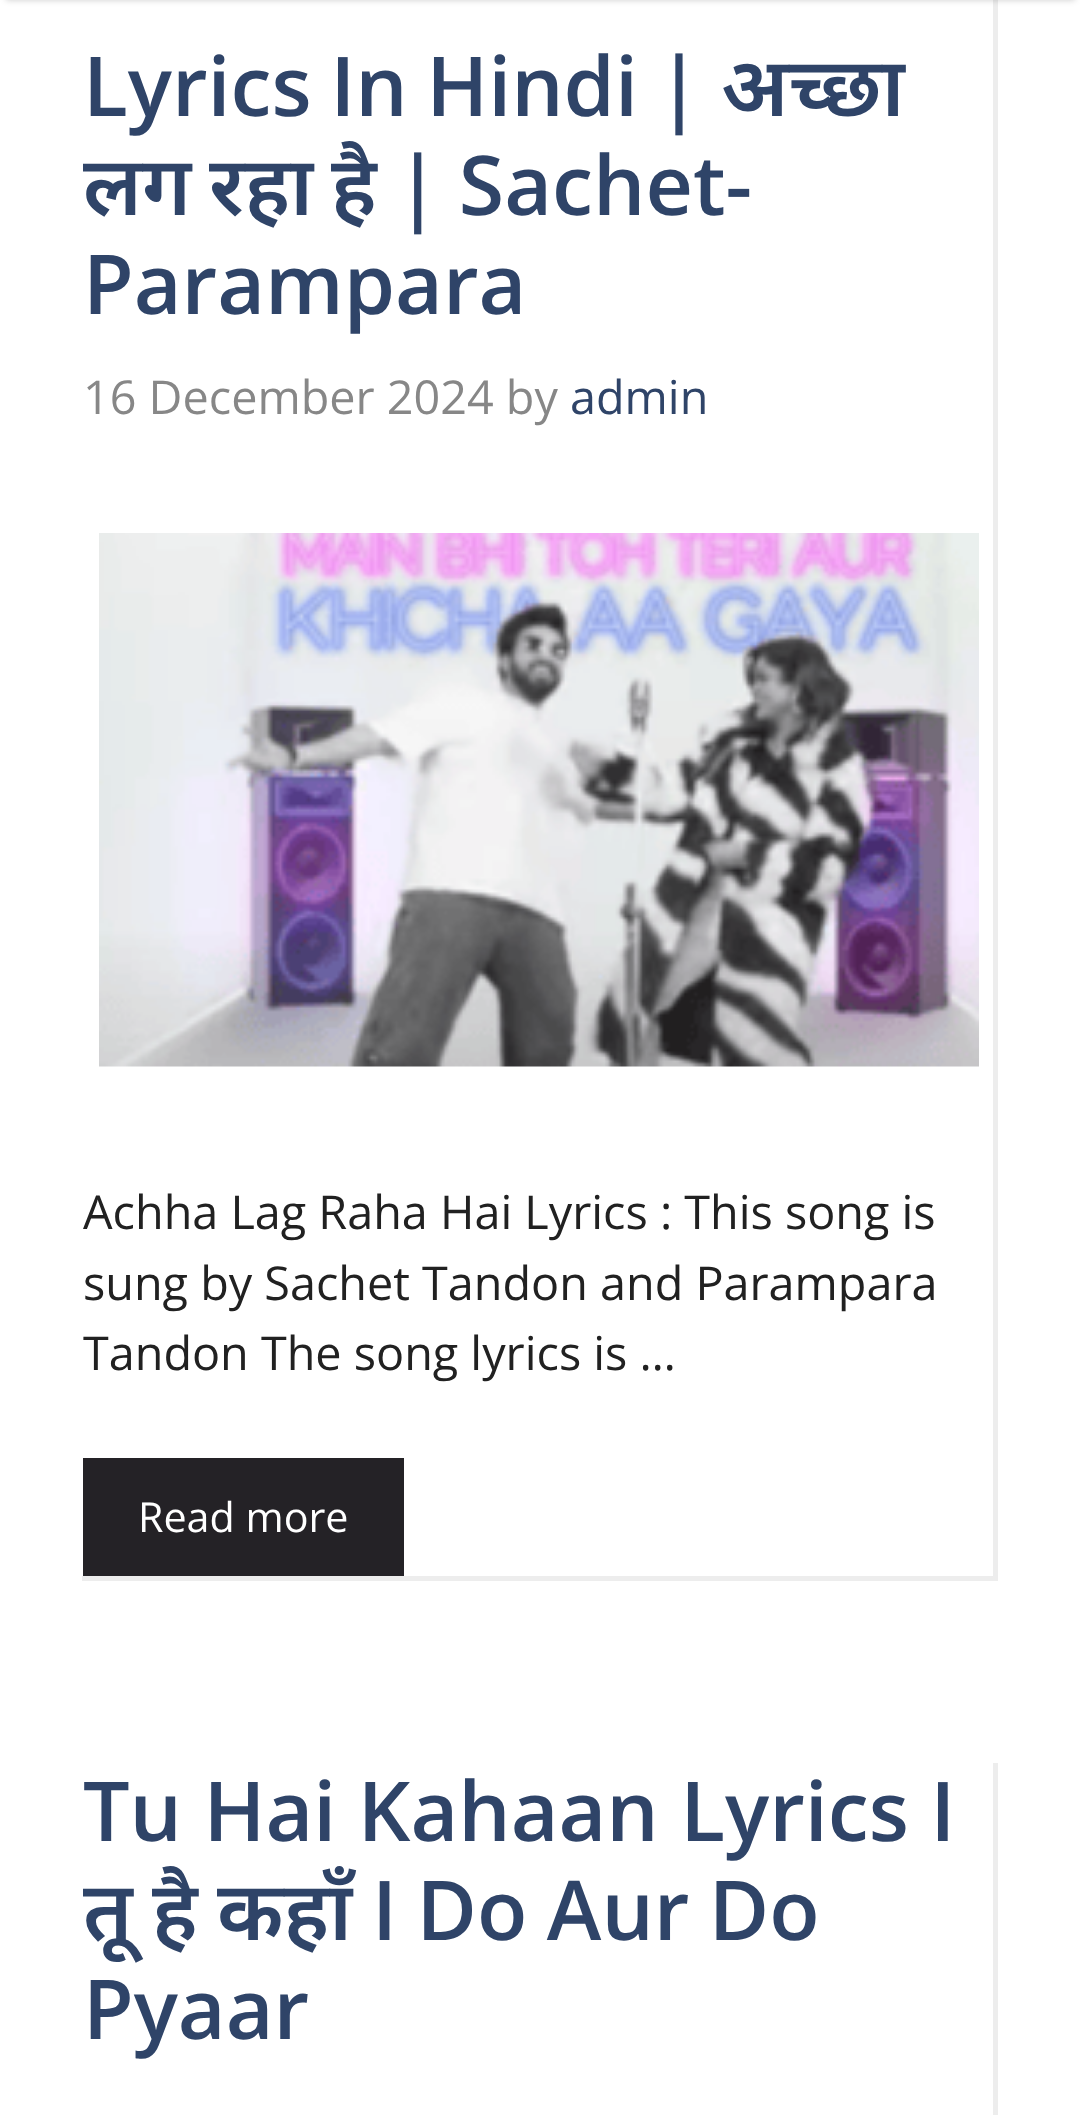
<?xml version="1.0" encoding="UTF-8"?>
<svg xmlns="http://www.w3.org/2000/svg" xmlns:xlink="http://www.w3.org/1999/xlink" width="1080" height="2115">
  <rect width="100%" height="100%" fill="#ffffff" />
  <path d="M 998 -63 v 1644 l -5 -5 v -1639 z" fill="#ededed" />
  <rect x="6" y="-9" width="1069" height="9" fill="#000000" fill-opacity="0.2" filter="blur(3px)" />
  <path d="M 998 1581 h -916 v -5 h 911 z" fill="#000000" fill-opacity="0.07" />
  <image x="99" y="533" width="880" height="534" xlink:href="image1.png" />
  <rect x="83" y="1458" width="321" height="118" fill="#242226" />
  <path d="M 998 1763 v 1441 l -5 -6 v -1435 z" fill="#ededed" />
  <text x="83" y="116" word-spacing="-3" style="font-family: Open Sans; font-size: 82.5px; font-weight: 600; fill: #2f4468">Lyrics In Hindi |</text>
  <text x="721" y="116" style="font-family: Noto Sans; font-size: 82.5px; font-weight: 600; fill: #2f4468">अच्छा</text>
  <text x="83" y="215" style="font-family: Noto Sans; font-size: 82.5px; font-weight: 600; fill: #2f4468">लग</text>
  <text x="209" y="215" style="font-family: Noto Sans; font-size: 82.5px; font-weight: 600; fill: #2f4468">रहा</text>
  <text x="331" y="215" style="font-family: Noto Sans; font-size: 82.5px; font-weight: 600; fill: #2f4468">है</text>
  <text x="395" y="215" word-spacing="-3" style="font-family: Open Sans; font-size: 82.5px; font-weight: 600; fill: #2f4468">| Sachet-</text>
  <text x="83" y="314" style="font-family: Open Sans; font-size: 82.5px; font-weight: 600; fill: #2f4468">Parampara</text>
  <text x="83" y="414" style="font-family: Open Sans; font-size: 46.75px; fill: #878787">16 December 2024 by</text>
  <text x="570" y="414" style="font-family: Open Sans; font-size: 46.75px; fill: #2f4468">admin</text>
  <text x="83" y="1229" style="font-family: Open Sans; font-size: 46.75px; fill: #212121">Achha Lag Raha Hai Lyrics : This song is</text>
  <text x="83" y="1300" style="font-family: Open Sans; font-size: 46.75px; fill: #212121">sung by Sachet Tandon and Parampara</text>
  <text x="83" y="1370" style="font-family: Open Sans; font-size: 46.75px; fill: #212121">Tandon The song lyrics is …</text>
  <text x="138" y="1532" style="font-family: Open Sans; font-size: 41.25px; fill: #ffffff">Read more</text>
  <text x="83" y="1841" style="font-family: Open Sans; font-size: 82.5px; font-weight: 600; fill: #2f4468">Tu Hai Kahaan Lyrics I</text>
  <text x="83" y="1940" style="font-family: Noto Sans; font-size: 82.5px; font-weight: 600; fill: #2f4468">तू</text>
  <text x="152" y="1940" style="font-family: Noto Sans; font-size: 82.5px; font-weight: 600; fill: #2f4468">है</text>
  <text x="217" y="1940" style="font-family: Noto Sans; font-size: 82.5px; font-weight: 600; fill: #2f4468">कहाँ</text>
  <text x="372" y="1940" word-spacing="-2" style="font-family: Open Sans; font-size: 82.5px; font-weight: 600; fill: #2f4468">I Do Aur Do</text>
  <text x="83" y="2039" style="font-family: Open Sans; font-size: 82.5px; font-weight: 600; fill: #2f4468">Pyaar</text>
</svg>
